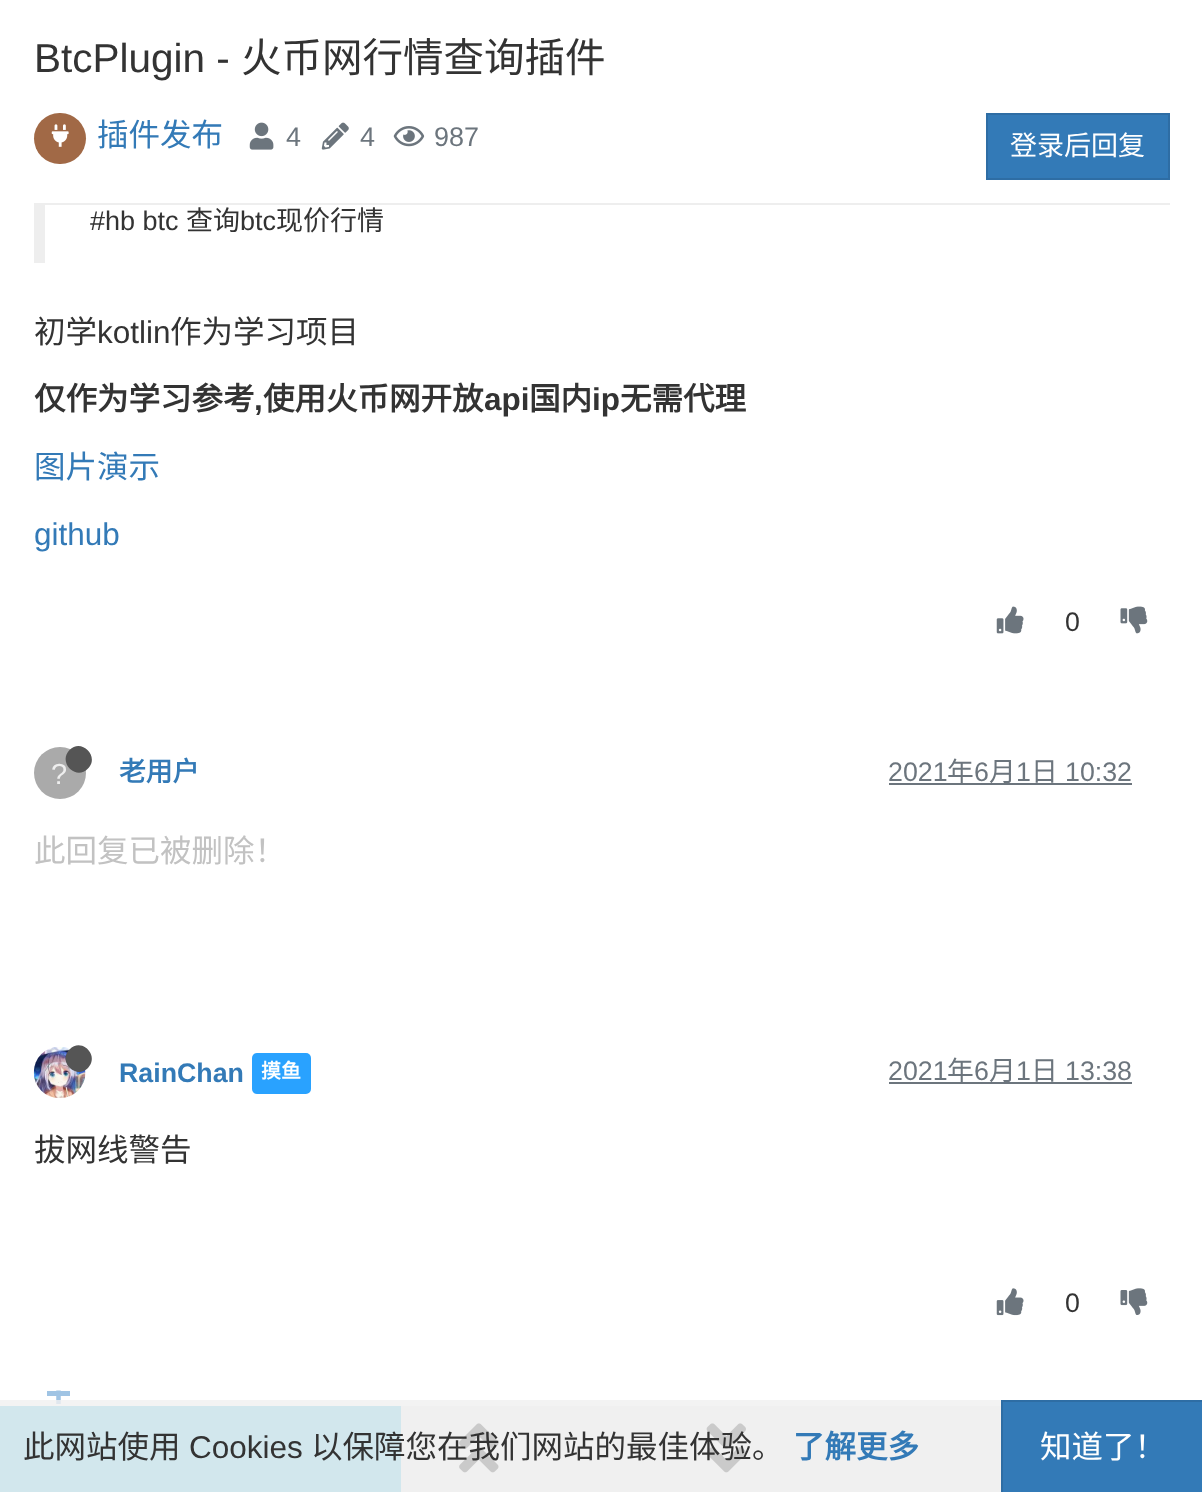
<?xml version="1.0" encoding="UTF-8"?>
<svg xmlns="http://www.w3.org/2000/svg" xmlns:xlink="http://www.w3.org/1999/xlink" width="1202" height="1492">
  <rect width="100%" height="100%" fill="#ffffff" />
  <rect x="34" y="203" width="1136" height="2" fill="#eeeeee" />
  <rect x="34" y="113" width="52" height="51" rx="25.5" fill="#a16946" />
  <image x="51" y="124" width="18" height="23" xlink:href="image1.png" />
  <image x="249" y="122" width="25" height="28" xlink:href="image2.png" />
  <image x="321" y="122" width="28" height="28" xlink:href="image3.png" />
  <image x="393" y="126" width="32" height="21" xlink:href="image4.png" />
  <rect x="987" y="114" width="182" height="65" fill="#337ab7" stroke="#2e6da4" stroke-width="2" />
  <rect x="34" y="205" width="11" height="58" fill="#eeeeee" />
  <image x="996" y="606" width="28" height="28" xlink:href="image5.png" />
  <image x="1120" y="606" width="28" height="28" xlink:href="image6.png" />
  <circle cx="60" cy="773" r="26" fill="#aaaaaa" />
  <rect x="889" y="783" width="243" height="2" fill="#6c757d" />
  <image x="33" y="1047" width="53" height="51" xlink:href="image7.png" />
  <path d="M 69.5 1049.5 c 12 -12.5 30.5 6 18.5 18.5 c -12 12 -30.5 -6.5 -18.5 -18.5 z" fill="#555555" />
  <rect x="252" y="1053" width="59" height="41" rx="5" fill="#29a2ff" />
  <rect x="889" y="1082" width="243" height="2" fill="#6c757d" />
  <image x="996" y="1288" width="28" height="28" xlink:href="image8.png" />
  <image x="1120" y="1288" width="28" height="27" xlink:href="image9.png" />
  <path d="M 58.5 1390.5 v 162" fill="none" stroke="#a0c4e4" stroke-width="4.5" stroke-dasharray="13.5 7.72" />
  <rect x="47" y="1391" width="23" height="5" fill="#a0c4e4" />
  <rect x="401" y="1406" width="600" height="86" fill="#eeeeee" />
  <rect y="1406" width="401" height="86" fill="#5bc0de" />
  <image x="459" y="1423" width="40" height="50" xlink:href="image10.png" />
  <image x="706" y="1423" width="40" height="50" xlink:href="image11.png" />
  <rect y="1400" width="1001" height="92" fill="#f0f0f0" fill-opacity="0.8" />
  <rect x="1002" y="1401" width="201" height="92" fill="#337ab7" stroke="#2e6da4" stroke-width="2" />
  <text x="34" y="72" style="font-family: Liberation Sans; font-size: 40.5px; fill: #333333">BtcPlugin -</text>
  <text x="241" y="72" style="font-family: Noto Sans CJK SC; font-size: 40.5px; fill: #333333">火币网行情查询插件</text>
  <text x="97" y="146" style="font-family: Noto Sans CJK SC; font-size: 31.5px; fill: #337ab7">插件发布</text>
  <text x="286" y="146" style="font-family: Liberation Sans; font-size: 27px; fill: #6c757d">4</text>
  <text x="360" y="146" style="font-family: Liberation Sans; font-size: 27px; fill: #6c757d">4</text>
  <text x="434" y="146" style="font-family: Liberation Sans; font-size: 27px; fill: #6c757d">987</text>
  <text x="1010" y="155" style="font-family: Noto Sans CJK SC; font-size: 27px; fill: #ffffff">登录后回复</text>
  <text x="90" y="230" style="font-family: Liberation Sans; font-size: 27px; fill: #333333">#hb btc</text>
  <text x="186" y="230" style="font-family: Noto Sans CJK SC; font-size: 27px; fill: #333333">查询</text>
  <text x="240" y="230" style="font-family: Liberation Sans; font-size: 27px; fill: #333333">btc</text>
  <text x="276" y="230" style="font-family: Noto Sans CJK SC; font-size: 27px; fill: #333333">现价行情</text>
  <text x="34" y="343" style="font-family: Noto Sans CJK SC; font-size: 31.5px; fill: #333333">初学</text>
  <text x="97" y="343" style="font-family: Liberation Sans; font-size: 31.5px; fill: #333333">kotlin</text>
  <text x="170" y="343" style="font-family: Noto Sans CJK SC; font-size: 31.5px; fill: #333333">作为学习项目</text>
  <text x="34" y="410" style="font-family: Noto Sans CJK SC; font-size: 31.5px; font-weight: bold; fill: #333333">仅作为学习参考</text>
  <text x="254" y="410" style="font-family: Liberation Sans; font-size: 31.5px; font-weight: bold; fill: #333333">,</text>
  <text x="263" y="410" style="font-family: Noto Sans CJK SC; font-size: 31.5px; font-weight: bold; fill: #333333">使用火币网开放</text>
  <text x="484" y="410" style="font-family: Liberation Sans; font-size: 31.5px; font-weight: bold; fill: #333333">api</text>
  <text x="529" y="410" style="font-family: Noto Sans CJK SC; font-size: 31.5px; font-weight: bold; fill: #333333">国内</text>
  <text x="592" y="410" style="font-family: Liberation Sans; font-size: 31.5px; font-weight: bold; fill: #333333">ip</text>
  <text x="620" y="410" style="font-family: Noto Sans CJK SC; font-size: 31.5px; font-weight: bold; fill: #333333">无需代理</text>
  <text x="34" y="478" style="font-family: Noto Sans CJK SC; font-size: 31.5px; fill: #337ab7">图片演示</text>
  <text x="34" y="545" style="font-family: Liberation Sans; font-size: 31.5px; fill: #337ab7">github</text>
  <text x="1065" y="631" style="font-family: Liberation Sans; font-size: 26.75px; fill: #333333">0</text>
  <text x="51" y="784" style="font-family: Liberation Sans; font-size: 29px; fill: #eeeeee">?</text>
  <path d="M 69.5 750 c 12 -12 30.5 6.5 18.5 18.5 c -12 12.5 -30.5 -6 -18.5 -18.5 z" fill="#555555" />
  <text x="119" y="781" style="font-family: Noto Sans CJK SC; font-size: 26.75px; font-weight: bold; fill: #337ab7">老用户</text>
  <text x="888" y="781" style="font-family: Liberation Sans; font-size: 26.75px; fill: #6c757d">2021</text>
  <text x="947" y="781" style="font-family: Noto Sans CJK SC; font-size: 26.75px; fill: #6c757d">年</text>
  <text x="974" y="781" style="font-family: Liberation Sans; font-size: 26.75px; fill: #6c757d">6</text>
  <text x="989" y="781" style="font-family: Noto Sans CJK SC; font-size: 26.75px; fill: #6c757d">月</text>
  <text x="1016" y="781" style="font-family: Liberation Sans; font-size: 26.75px; fill: #6c757d">1</text>
  <text x="1031" y="781" style="font-family: Noto Sans CJK SC; font-size: 26.75px; fill: #6c757d">日</text>
  <text x="1065" y="781" style="font-family: Liberation Sans; font-size: 26.75px; fill: #6c757d">10:32</text>
  <text x="34" y="862" style="font-family: Noto Sans CJK SC; font-size: 31.5px; fill: #c2c2c2">此回复已被删除！</text>
  <text x="119" y="1082" style="font-family: Liberation Sans; font-size: 26.75px; font-weight: bold; fill: #337ab7">RainChan</text>
  <text x="261" y="1078" style="font-family: Noto Sans CJK SC; font-size: 20px; font-weight: bold; fill: #ffffff">摸鱼</text>
  <text x="888" y="1080" style="font-family: Liberation Sans; font-size: 26.75px; fill: #6c757d">2021</text>
  <text x="947" y="1080" style="font-family: Noto Sans CJK SC; font-size: 26.75px; fill: #6c757d">年</text>
  <text x="974" y="1080" style="font-family: Liberation Sans; font-size: 26.75px; fill: #6c757d">6</text>
  <text x="989" y="1080" style="font-family: Noto Sans CJK SC; font-size: 26.75px; fill: #6c757d">月</text>
  <text x="1016" y="1080" style="font-family: Liberation Sans; font-size: 26.75px; fill: #6c757d">1</text>
  <text x="1031" y="1080" style="font-family: Noto Sans CJK SC; font-size: 26.75px; fill: #6c757d">日</text>
  <text x="1065" y="1080" style="font-family: Liberation Sans; font-size: 26.75px; fill: #6c757d">13:38</text>
  <text x="34" y="1161" style="font-family: Noto Sans CJK SC; font-size: 31.5px; fill: #333333">拔网线警告</text>
  <text x="1065" y="1312" style="font-family: Liberation Sans; font-size: 26.75px; fill: #333333">0</text>
  <text x="23" y="1458" style="font-family: Noto Sans CJK SC; font-size: 31.5px; fill: #333333">此网站使用</text>
  <text x="189" y="1458" style="font-family: Liberation Sans; font-size: 31.5px; fill: #333333">Cookies</text>
  <text x="311" y="1458" style="font-family: Noto Sans CJK SC; font-size: 31.5px; fill: #333333">以保障您在我们网站的最佳体验。</text>
  <text x="793" y="1458" style="font-family: Noto Sans CJK SC; font-size: 31.5px; font-weight: bold; fill: #337ab7">了解更多</text>
  <text x="1040" y="1458" style="font-family: Noto Sans CJK SC; font-size: 31.5px; fill: #ffffff">知道了！</text>
</svg>
